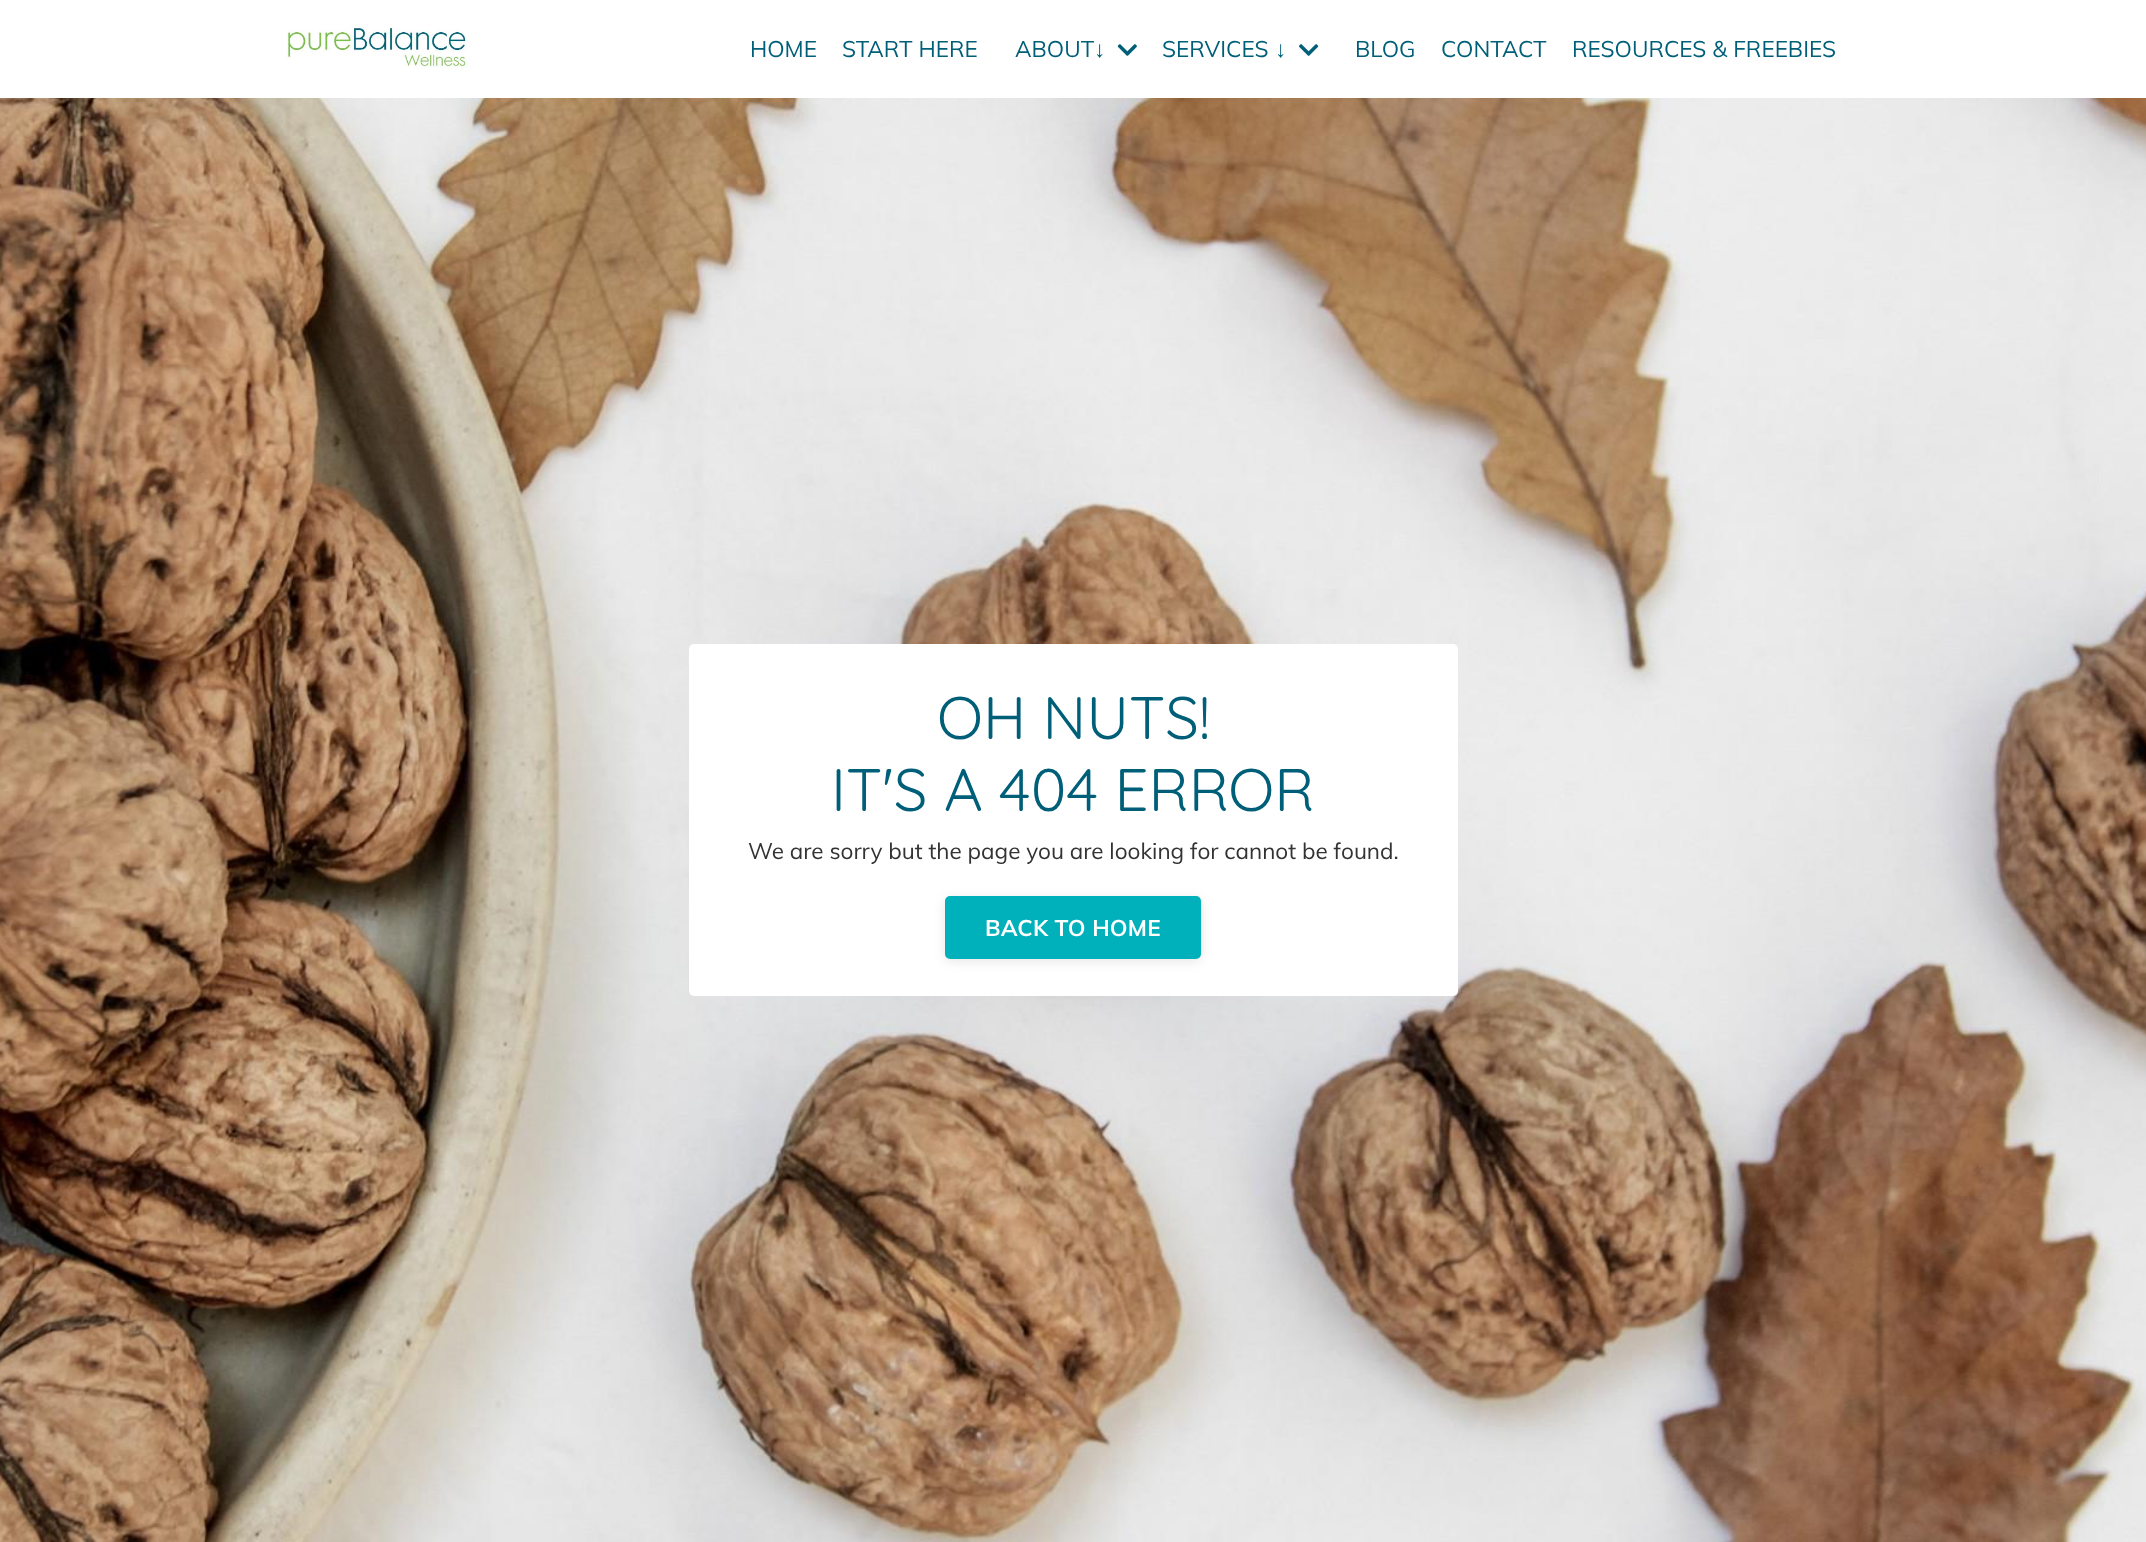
<?xml version="1.0" encoding="UTF-8"?>
<svg xmlns="http://www.w3.org/2000/svg" xmlns:xlink="http://www.w3.org/1999/xlink" width="2146" height="1542">
  <rect width="100%" height="100%" fill="#ffffff" />
  <image x="286" y="25" width="181" height="44" xlink:href="image1.png" />
  <image x="1117" y="44" width="20" height="12" xlink:href="image2.png" />
  <image x="1299" y="44" width="20" height="12" xlink:href="image3.png" />
  <image x="0" y="98" width="2146" height="1444" xlink:href="image4.png" />
  <rect x="689" y="644" width="769" height="352" rx="5" fill="#ffffff" />
  <rect x="945" y="899" width="256" height="62" rx="5" fill="#000000" fill-opacity="0.1" filter="blur(6px)" />
  <rect x="946.5" y="897.5" width="253" height="60" rx="3.5" fill="#00b0ba" stroke="#00b0ba" stroke-width="3" />
  <text x="750" y="57" style="font-family: Muli; font-size: 22.5px; fill: #005f78">HOME</text>
  <text x="842" y="57" style="font-family: Muli; font-size: 22.5px; fill: #005f78">START HERE</text>
  <text x="1015" y="57" style="font-family: Muli; font-size: 22.5px; fill: #005f78">ABOUT</text>
  <text x="1094" y="57" style="font-family: Liberation Serif; font-size: 22.5px; fill: #005f78">↓</text>
  <text x="1162" y="57" style="font-family: Muli; font-size: 22.5px; fill: #005f78">SERVICES</text>
  <text x="1275" y="57" style="font-family: Liberation Serif; font-size: 22.5px; fill: #005f78">↓</text>
  <text x="1355" y="57" style="font-family: Muli; font-size: 22.5px; fill: #005f78">BLOG</text>
  <text x="1441" y="57" style="font-family: Muli; font-size: 22.5px; fill: #005f78">CONTACT</text>
  <text x="1572" y="57" style="font-family: Muli; font-size: 22.5px; fill: #005f78">RESOURCES &amp; FREEBIES</text>
  <text x="937" y="739" style="font-family: Quicksand; font-size: 60px; fill: #005f78">OH NUTS!</text>
  <text x="831" y="811" style="font-family: Quicksand; font-size: 60px; fill: #005f78">IT'S A 404 ERROR</text>
  <text x="748" y="859" style="font-family: Muli; font-size: 22.5px; fill: #333335">We are sorry but the page you are looking for cannot be found.</text>
  <text x="985" y="936" style="font-family: Muli; font-size: 22.5px; font-weight: bold; letter-spacing: 0.25px; fill: #ffffff">BACK TO HOME</text>
</svg>
